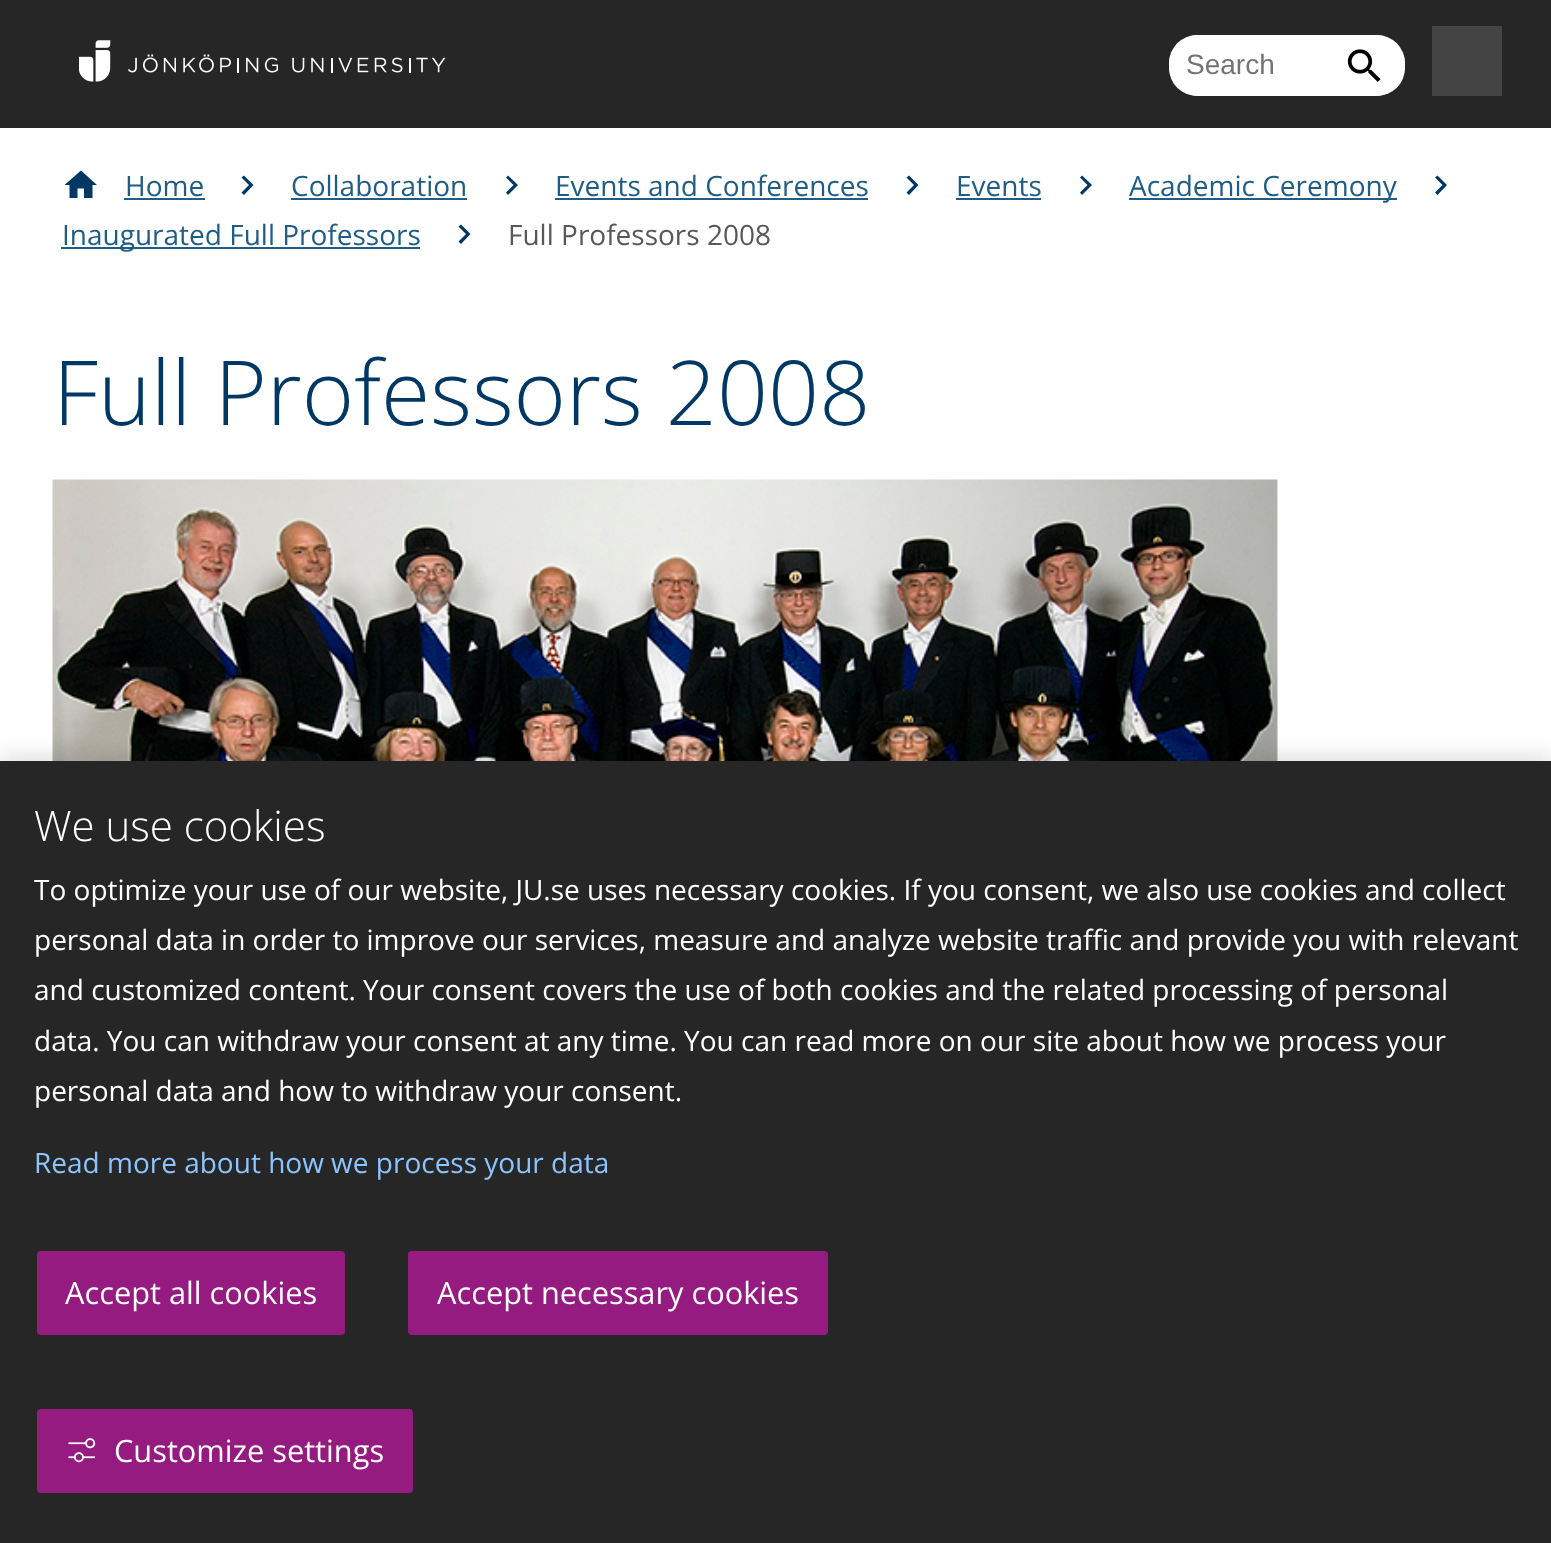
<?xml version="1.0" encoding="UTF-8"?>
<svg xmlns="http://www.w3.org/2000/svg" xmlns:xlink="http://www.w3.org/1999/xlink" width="1551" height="1543">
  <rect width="100%" height="100%" fill="#ffffff" />
  <rect width="1551" height="128" fill="#262626" />
  <image x="79" y="40" width="367" height="42" xlink:href="image1.png" />
  <rect x="1169" y="35" width="236" height="61" rx="28" fill="#ffffff" />
  <rect x="1169" y="35" width="236" height="61" rx="30.5" fill="#ffffff" />
  <image x="1347" y="49" width="34" height="33" xlink:href="image2.png" />
  <rect x="1432" y="26" width="70" height="70" fill="#444444" />
  <path d="M 77.5 198 h -8 v -13 h -5 l 16.5 -14.5 l 16 14.5 h -4.5 v 13 h -8.5 v -9.5 h -6.5 z" fill="#003865" />
  <rect x="124" y="198" width="81" height="2" fill="#1f5d86" />
  <path d="M 244 175.5 l 9.5 9.5 l -9.5 10 l -2.5 -2.5 l 7.5 -7.5 l -7.5 -7.5 z" fill="#003865" />
  <rect x="291" y="198" width="176" height="2" fill="#1f5d86" />
  <path d="M 508 175.5 l 10 9.5 l -10 10 l -2 -2.5 l 7.5 -7.5 l -7.5 -7.5 z" fill="#003865" />
  <rect x="555" y="198" width="313" height="2" fill="#1f5d86" />
  <path d="M 909 175.5 l 9.5 9.5 l -9.5 10 l -2.5 -2.5 l 7.5 -7.5 l -7.5 -7.5 z" fill="#003865" />
  <rect x="956" y="198" width="85" height="2" fill="#1f5d86" />
  <path d="M 1082 175.5 l 10 9.5 l -10 10 l -2 -2.5 l 7.5 -7.5 l -7.5 -7.5 z" fill="#003865" />
  <rect x="1129" y="198" width="268" height="2" fill="#1f5d86" />
  <path d="M 1437.5 175.5 l 9.5 9.5 l -9.5 10 l -2.5 -2.5 l 7.5 -7.5 l -7.5 -7.5 z" fill="#003865" />
  <rect x="61" y="247" width="359" height="2" fill="#1f5d86" />
  <path d="M 461 224.5 l 9.5 9.5 l -9.5 10 l -2.5 -2.5 l 7.5 -7.5 l -7.5 -7.5 z" fill="#003865" />
  <image x="52" y="479" width="1226" height="282" xlink:href="image3.png" />
  <rect y="753" width="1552" height="782" fill="#000000" fill-opacity="0.1" filter="blur(9px)" />
  <rect y="761" width="1551" height="782" fill="#262626" />
  <rect x="37" y="1251" width="308" height="84" rx="4" fill="#961b81" />
  <rect x="408" y="1251" width="420" height="84" rx="4" fill="#961b81" />
  <rect x="37" y="1409" width="376" height="84" rx="4" fill="#961b81" />
  <image x="68" y="1438" width="28" height="25" xlink:href="image4.png" />
  <text x="1186" y="74" style="font-family: Liberation Sans; font-size: 28px; fill: #737373">Search</text>
  <text x="125" y="196" style="font-family: Open Sans; font-size: 28px; fill: #1f5d86">Home</text>
  <text x="291" y="196" style="font-family: Open Sans; font-size: 28px; fill: #1f5d86">Collaboration</text>
  <text x="555" y="196" style="font-family: Open Sans; font-size: 28px; fill: #1f5d86">Events and Conferences</text>
  <text x="956" y="196" style="font-family: Open Sans; font-size: 28px; fill: #1f5d86">Events</text>
  <text x="1129" y="196" style="font-family: Open Sans; font-size: 28px; fill: #1f5d86">Academic Ceremony</text>
  <text x="62" y="245" style="font-family: Open Sans; font-size: 28px; fill: #1f5d86">Inaugurated Full Professors</text>
  <text x="508" y="245" style="font-family: Open Sans; font-size: 28px; fill: #585857">Full Professors 2008</text>
  <text x="53" y="425" style="font-family: Open Sans; font-size: 89.5px; font-weight: 300; fill: #003865">Full Professors 2008</text>
  <text x="34" y="841" style="font-family: Open Sans; font-size: 42px; font-weight: 300; fill: #ffffff">We use cookies</text>
  <text x="34" y="900" style="font-family: Open Sans; font-size: 28px; fill: #ffffff">To optimize your use of our website, JU.se uses necessary cookies. If you consent, we also use cookies and collect</text>
  <text x="34" y="950" style="font-family: Open Sans; font-size: 28px; fill: #ffffff">personal data in order to improve our services, measure and analyze website traffic and provide you with relevant</text>
  <text x="34" y="1000" style="font-family: Open Sans; font-size: 28px; fill: #ffffff">and customized content. Your consent covers the use of both cookies and the related processing of personal</text>
  <text x="34" y="1051" style="font-family: Open Sans; font-size: 28px; fill: #ffffff">data. You can withdraw your consent at any time. You can read more on our site about how we process your</text>
  <text x="34" y="1101" style="font-family: Open Sans; font-size: 28px; fill: #ffffff">personal data and how to withdraw your consent.</text>
  <text x="34" y="1173" style="font-family: Open Sans; font-size: 28px; fill: #8bc4ff">Read more about how we process your data</text>
  <text x="65" y="1304" style="font-family: Open Sans; font-size: 30.75px; fill: #ffffff">Accept all cookies</text>
  <text x="437" y="1304" style="font-family: Open Sans; font-size: 30.75px; fill: #ffffff">Accept necessary cookies</text>
  <text x="114" y="1462" style="font-family: Open Sans; font-size: 30.75px; fill: #ffffff">Customize settings</text>
</svg>
